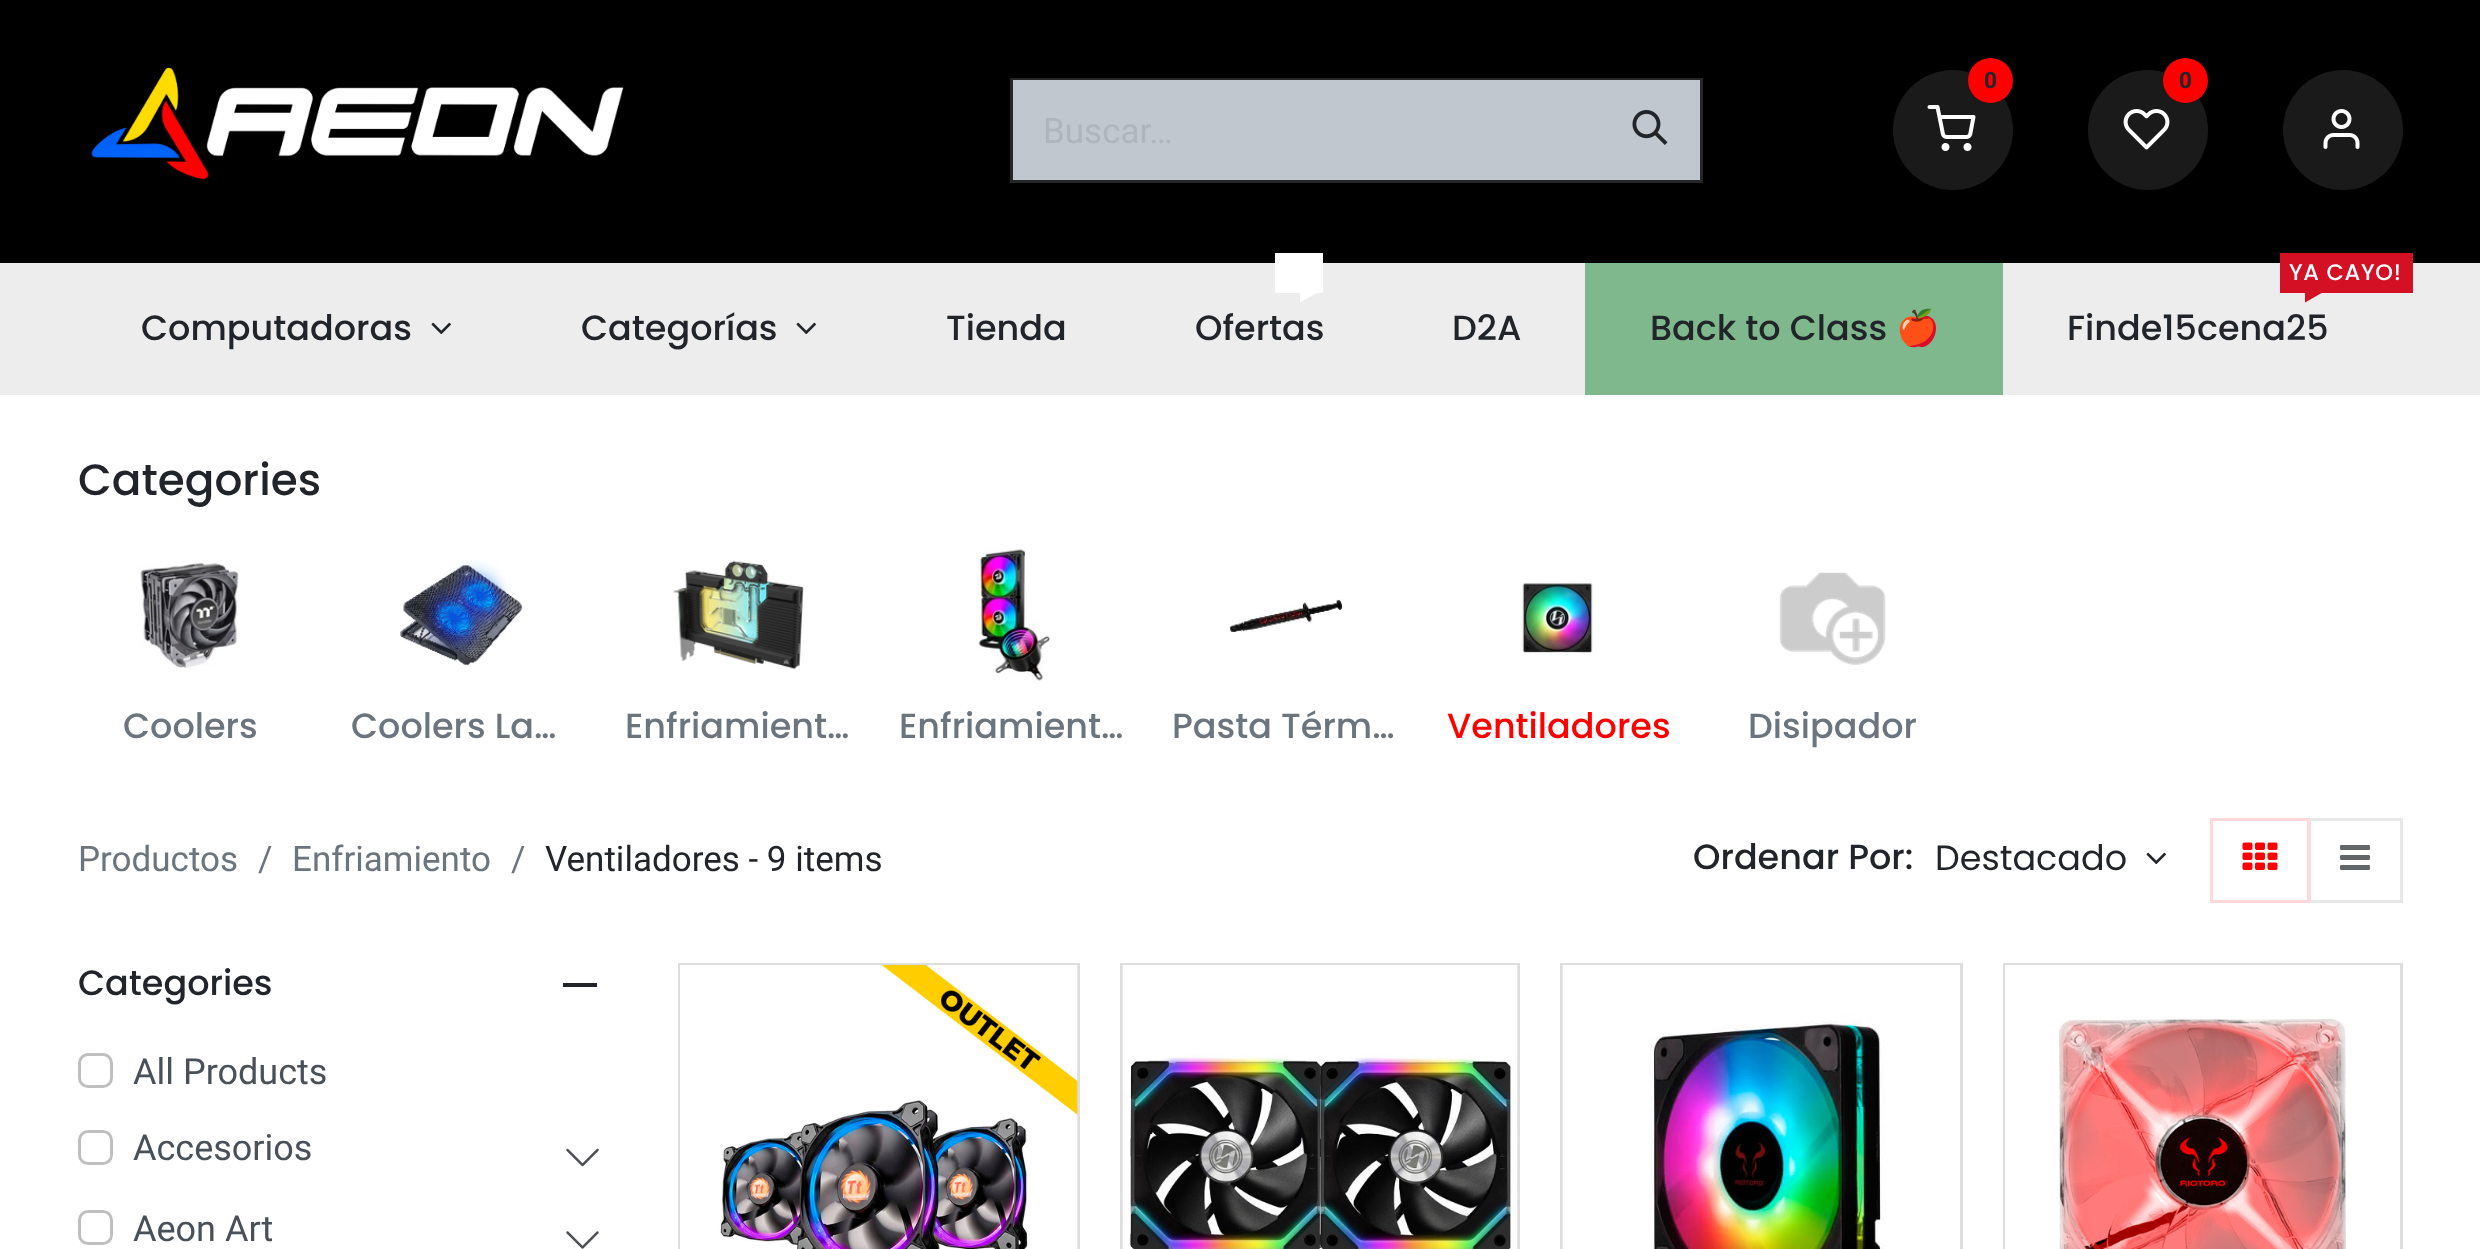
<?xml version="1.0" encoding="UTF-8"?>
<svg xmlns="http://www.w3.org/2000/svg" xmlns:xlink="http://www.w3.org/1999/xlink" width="2480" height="1249">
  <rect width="100%" height="100%" fill="#ffffff" />
  <rect width="2480" height="260" fill="#000000" />
  <rect y="260" width="2480" height="3" fill="#040405" />
  <image x="91" y="67" width="533" height="112" xlink:href="image1.png" />
  <circle cx="1953" cy="130" r="60" fill="#1a1a1a" />
  <image x="1927" y="105" width="49" height="46" xlink:href="image2.png" />
  <circle cx="1990.5" cy="80.5" r="22.5" fill="#ff0000" />
  <circle cx="2148" cy="130" r="60" fill="#1a1a1a" />
  <image x="2123" y="109" width="47" height="41" xlink:href="image3.png" />
  <circle cx="2185.5" cy="80.5" r="22.5" fill="#ff0000" />
  <circle cx="2343" cy="130" r="60" fill="#1a1a1a" />
  <image x="2323" y="109" width="37" height="40" xlink:href="image4.png" />
  <rect x="1011.5" y="79.5" width="690" height="102" fill="none" stroke="#262626" stroke-width="3" />
  <rect x="1013" y="80" width="687" height="100" fill="#c0c7ce" />
  <image x="1632" y="110" width="36" height="35" xlink:href="image5.png" />
  <rect y="263" width="2480" height="132" fill="#ededed" />
  <image x="431" y="322" width="20" height="13" xlink:href="image6.png" />
  <image x="796" y="322" width="20" height="13" xlink:href="image6.png" />
  <rect x="1275" y="253" width="48" height="40" fill="#ffffff" />
  <path d="M 1300 292.5 h 17.5 l -17.5 10 z" fill="#ffffff" />
  <rect x="1585" y="263" width="418" height="132" fill="#7fb88d" />
  <rect x="2280" y="253" width="133" height="40" fill="#d31024" />
  <path d="M 2305 292.5 h 17.5 l -17.5 10 z" fill="#d31024" />
  <image x="140" y="563" width="99" height="107" xlink:href="image7.png" />
  <image x="400" y="560" width="123" height="106" xlink:href="image8.png" />
  <image x="673" y="560" width="131" height="110" xlink:href="image9.png" />
  <image x="976" y="548" width="75" height="133" xlink:href="image10.png" />
  <image x="1230" y="598" width="114" height="34" xlink:href="image11.png" />
  <image x="1522" y="581" width="71" height="75" xlink:href="image12.png" />
  <image x="1779" y="572" width="107" height="93" xlink:href="image13.png" />
  <image x="2146" y="852" width="20" height="13" xlink:href="image14.png" />
  <rect x="2309.5" y="819.5" width="92" height="82" fill="none" stroke="#e8e8e8" stroke-width="3" />
  <rect x="2211.5" y="819.5" width="97" height="82" fill="none" stroke="#ffd9d9" stroke-width="3" />
  <image x="2242" y="842" width="36" height="28" xlink:href="image15.png" />
  <image x="2340" y="845" width="30" height="25" xlink:href="image16.png" />
  <rect x="563" y="983" width="34" height="4" fill="#212529" />
  <rect x="79.5" y="1054.5" width="32" height="32" rx="8.5" fill="none" stroke="#bfbfbf" stroke-width="3" />
  <rect x="79.5" y="1131.5" width="32" height="32" rx="8.5" fill="none" stroke="#bfbfbf" stroke-width="3" />
  <image x="566" y="1148" width="33" height="19" xlink:href="image17.png" />
  <rect x="79.5" y="1211.5" width="32" height="32" rx="8.5" fill="none" stroke="#bfbfbf" stroke-width="3" />
  <image x="566" y="1231" width="33" height="18" xlink:href="image18.png" />
  <rect x="679.5" y="964.5" width="399" height="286" fill="none" stroke="#dededf" stroke-width="3" />
  <image x="680" y="965" width="398" height="284" xlink:href="image19.png" />
  <rect x="1121.5" y="964.5" width="397" height="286" fill="none" stroke="#dededf" stroke-width="3" />
  <image x="1122" y="965" width="396" height="284" xlink:href="image20.png" />
  <rect x="1561.5" y="964.5" width="400" height="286" fill="none" stroke="#dededf" stroke-width="3" />
  <image x="1562" y="965" width="398" height="284" xlink:href="image21.png" />
  <rect x="2004.5" y="964.5" width="397" height="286" fill="none" stroke="#dededf" stroke-width="3" />
  <image x="2005" y="965" width="395" height="284" xlink:href="image22.png" />
  <text x="1984" y="88" style="font-family: Roboto; font-size: 22.5px; font-weight: bold; fill: #212529">0</text>
  <text x="2179" y="88" style="font-family: Roboto; font-size: 22.5px; font-weight: bold; fill: #212529">0</text>
  <text x="1043" y="143" style="font-family: Roboto; font-size: 35px; fill: #adb5bd">Buscar…</text>
  <text x="141" y="340" style="font-family: Poppins; font-size: 35px; font-weight: 500; fill: #212529">Computadoras</text>
  <text x="581" y="340" style="font-family: Poppins; font-size: 35px; font-weight: 500; fill: #212529">Categorías</text>
  <text x="946" y="340" style="font-family: Poppins; font-size: 35px; font-weight: 500; fill: #212529">Tienda</text>
  <text x="1195" y="340" style="font-family: Poppins; font-size: 35px; font-weight: 500; fill: #212529">Ofertas</text>
  <text x="1452" y="340" style="font-family: Poppins; font-size: 35px; font-weight: 500; fill: #212529">D2A</text>
  <text x="1650" y="340" style="font-family: Poppins; font-size: 35px; font-weight: 500; fill: #212529">Back to Class</text>
  <text x="1896" y="340" style="font-family: Noto Color Emoji; font-size: 35px; fill: #212529">🍎</text>
  <text x="2289" y="280" style="font-family: Poppins; font-size: 22.5px; font-weight: 500; letter-spacing: 0.75px; fill: #ffffff">YA CAYO!</text>
  <text x="2067" y="340" style="font-family: Poppins; font-size: 35px; font-weight: 500; fill: #212529">Finde15cena25</text>
  <text x="78" y="495" style="font-family: Poppins; font-size: 43.75px; font-weight: 500; fill: #212529">Categories</text>
  <text x="123" y="738" style="font-family: Poppins; font-size: 35px; font-weight: 500; fill: #6c757d">Coolers</text>
  <text x="351" y="738" style="font-family: Poppins; font-size: 35px; font-weight: 500; fill: #6c757d">Coolers La…</text>
  <text x="625" y="738" style="font-family: Poppins; font-size: 35px; font-weight: 500; fill: #6c757d">Enfriamient…</text>
  <text x="899" y="738" style="font-family: Poppins; font-size: 35px; font-weight: 500; fill: #6c757d">Enfriamient…</text>
  <text x="1172" y="738" style="font-family: Poppins; font-size: 35px; font-weight: 500; fill: #6c757d">Pasta Térm…</text>
  <text x="1447" y="738" style="font-family: Poppins; font-size: 35px; font-weight: 500; fill: #ff0000">Ventiladores</text>
  <text x="1748" y="738" style="font-family: Poppins; font-size: 35px; font-weight: 500; fill: #6c757d">Disipador</text>
  <text x="78" y="871" style="font-family: Roboto; font-size: 35px; fill: #6c757d">Productos</text>
  <text x="258" y="871" style="font-family: Roboto; font-size: 35px; fill: #6c757d">/</text>
  <text x="292" y="871" style="font-family: Roboto; font-size: 35px; fill: #6c757d">Enfriamiento</text>
  <text x="511" y="871" style="font-family: Roboto; font-size: 35px; fill: #6c757d">/</text>
  <text x="545" y="871" style="font-family: Roboto; font-size: 35px; fill: #212529">Ventiladores - 9 items</text>
  <text x="1693" y="869" style="font-family: Poppins; font-size: 35px; font-weight: 500; fill: #212529">Ordenar Por:</text>
  <text x="1935" y="870" style="font-family: Poppins; font-size: 35px; fill: #212529">Destacado</text>
  <text x="78" y="995" style="font-family: Poppins; font-size: 35px; font-weight: 500; fill: #212529">Categories</text>
  <text x="133" y="1084" style="font-family: Roboto; font-size: 36px; fill: #495057">All Products</text>
  <text x="133" y="1160" style="font-family: Roboto; font-size: 36px; fill: #495057">Accesorios</text>
  <text x="133" y="1241" style="font-family: Roboto; font-size: 36px; fill: #495057">Aeon Art</text>
</svg>
